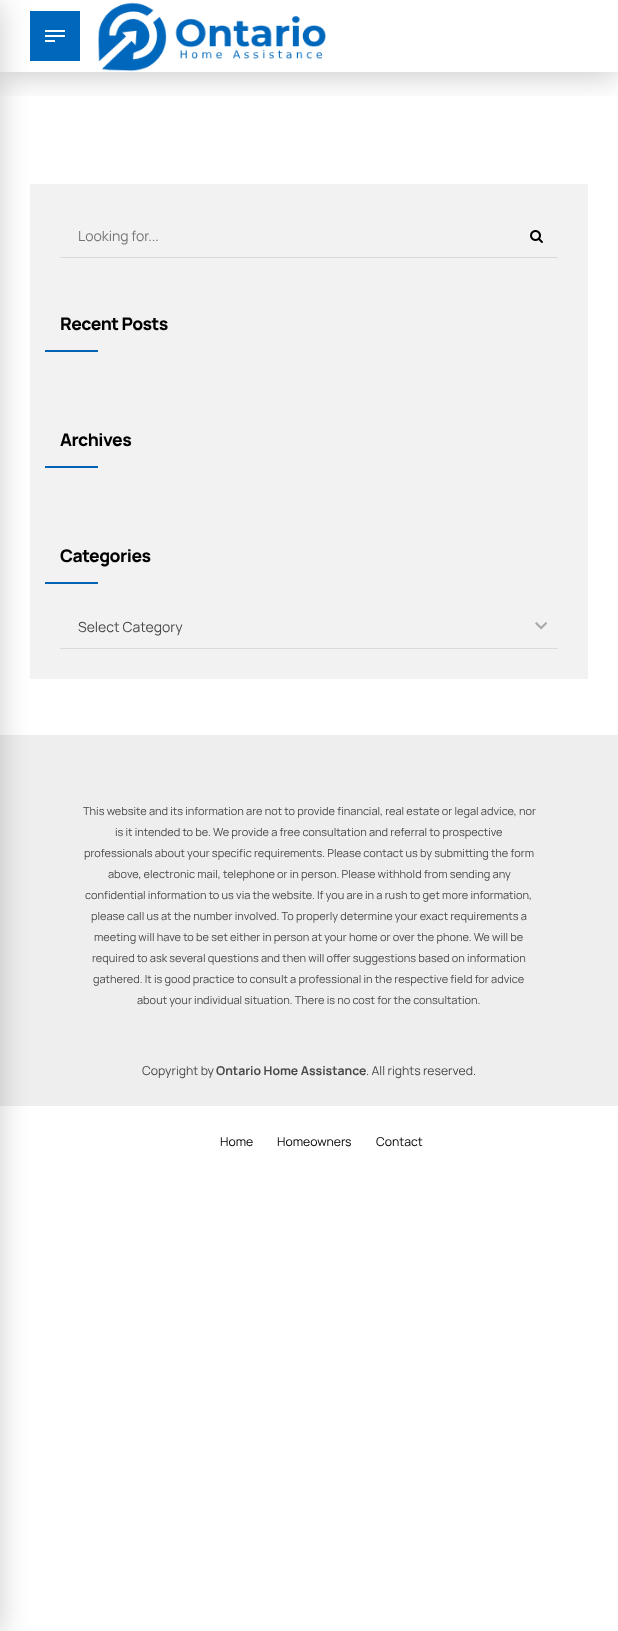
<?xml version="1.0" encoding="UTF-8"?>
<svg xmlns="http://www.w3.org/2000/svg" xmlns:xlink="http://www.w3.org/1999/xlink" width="618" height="1631">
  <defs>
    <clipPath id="clip1"><rect x="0" y="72" width="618" height="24" /></clipPath>
  </defs>
  <rect width="100%" height="100%" fill="#ffffff" />
  <rect x="30" y="184" width="558" height="495" fill="#f2f2f2" />
  <g clip-path="url(#clip1)">
    <rect y="5" width="618" height="72" fill="#000000" fill-opacity="0.2" filter="blur(15px)" />
  </g>
  <rect x="30" y="11" width="50" height="50" fill="#0068bc" />
  <rect x="45" y="30" width="20" height="2" fill="#ffffff" />
  <rect x="45" y="35" width="20" height="2" fill="#ffffff" />
  <rect x="45" y="40" width="10" height="2" fill="#ffffff" />
  <image x="98" y="2" width="228" height="70" xlink:href="image1.png" />
  <rect x="45" y="350" width="53" height="2" fill="#0063b3" />
  <rect x="45" y="466" width="53" height="2" fill="#0063b3" />
  <rect x="45" y="582" width="53" height="2" fill="#0063b3" />
  <rect y="735" width="618" height="371" fill="#eeeeee" />
  <rect x="-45" y="5" width="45" height="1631" fill="#000000" fill-opacity="0.2" filter="blur(15px)" />
  <rect x="60" y="257" width="498" height="1" fill="#dadada" />
  <image x="530" y="230" width="13" height="13" xlink:href="image2.png" />
  <rect x="60" y="648" width="498" height="1" fill="#dadada" />
  <image x="535" y="622" width="12" height="8" xlink:href="image3.png" />
  <text x="78" y="241" style="font-family: Manrope; font-size: 14px; fill: #757575">Looking for...</text>
  <text x="60" y="330" style="font-family: Manrope; font-size: 17.5px; font-weight: 800; letter-spacing: -0.5px; fill: #000000">Recent Posts</text>
  <text x="60" y="446" style="font-family: Manrope; font-size: 17.5px; font-weight: 800; letter-spacing: -0.5px; fill: #000000">Archives</text>
  <text x="60" y="562" style="font-family: Manrope; font-size: 17.5px; font-weight: 800; letter-spacing: -0.5px; fill: #000000">Categories</text>
  <text x="78" y="632" style="font-family: Manrope; font-size: 14px; fill: #494949">Select Category</text>
  <text x="83" y="815" style="font-family: Manrope; font-size: 11px; fill: #494949">This website and its information are not to provide financial, real estate or legal advice, nor</text>
  <text x="115" y="836" style="font-family: Manrope; font-size: 11px; fill: #494949">is it intended to be. We provide a free consultation and referral to prospective</text>
  <text x="84" y="857" style="font-family: Manrope; font-size: 11px; fill: #494949">professionals about your specific requirements. Please contact us by submitting the form</text>
  <text x="108" y="878" style="font-family: Manrope; font-size: 11px; fill: #494949">above, electronic mail, telephone or in person. Please withhold from sending any</text>
  <text x="85" y="899" style="font-family: Manrope; font-size: 11px; fill: #494949">confidential information to us via the website. If you are in a rush to get more information,</text>
  <text x="91" y="920" style="font-family: Manrope; font-size: 11px; fill: #494949">please call us at the number involved. To properly determine your exact requirements a</text>
  <text x="94" y="941" style="font-family: Manrope; font-size: 11px; fill: #494949">meeting will have to be set either in person at your home or over the phone. We will be</text>
  <text x="92" y="962" style="font-family: Manrope; font-size: 11px; fill: #494949">required to ask several questions and then will offer suggestions based on information</text>
  <text x="93" y="983" style="font-family: Manrope; font-size: 11px; fill: #494949">gathered. It is good practice to consult a professional in the respective field for advice</text>
  <text x="137" y="1004" style="font-family: Manrope; font-size: 11px; fill: #494949">about your individual situation. There is no cost for the consultation.</text>
  <text x="142" y="1075" style="font-family: Manrope; font-size: 12.25px; fill: #494949">Copyright by</text>
  <text x="216" y="1075" style="font-family: Manrope; font-size: 12.25px; font-weight: bold; fill: #494949">Ontario Home Assistance</text>
  <text x="366" y="1075" style="font-family: Manrope; font-size: 12.25px; fill: #494949">. All rights reserved.</text>
  <text x="220" y="1146" style="font-family: Manrope; font-size: 12.25px; fill: #000000">Home</text>
  <text x="277" y="1146" style="font-family: Manrope; font-size: 12.25px; fill: #000000">Homeowners</text>
  <text x="376" y="1146" style="font-family: Manrope; font-size: 12.25px; fill: #000000">Contact</text>
</svg>
